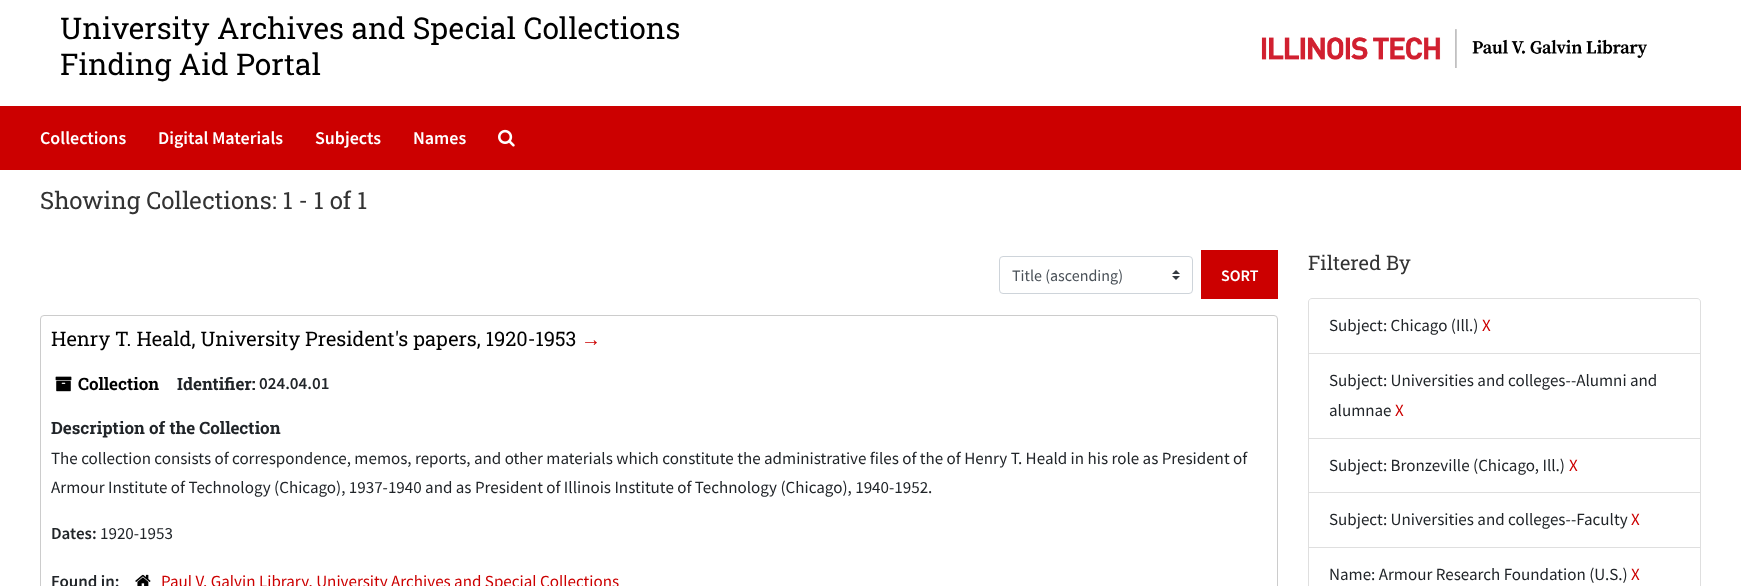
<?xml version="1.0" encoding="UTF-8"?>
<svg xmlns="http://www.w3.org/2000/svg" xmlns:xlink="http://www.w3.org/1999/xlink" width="1741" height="586">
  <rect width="100%" height="100%" fill="#ffffff" />
  <image x="1261" y="29" width="386" height="39" xlink:href="image1.png" />
  <rect y="106" width="1741" height="64" fill="#cc0000" />
  <image x="498" y="129" width="17" height="18" xlink:href="image2.png" />
  <image x="1172" y="270" width="8" height="10" xlink:href="image3.png" />
  <rect x="999.5" y="256.5" width="193" height="37" rx="3.5" fill="none" stroke="#ced4da" />
  <rect x="1201" y="250" width="77" height="49" fill="#cc0000" />
  <rect x="40.5" y="315.5" width="1237" height="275" rx="3.5" fill="none" stroke="#cccccc" />
  <image x="55" y="376" width="17" height="16" xlink:href="image4.png" />
  <image x="135" y="574" width="16" height="12" xlink:href="image5.png" />
  <path d="M 1312 298.5 h 385 c 2 0 3.5 1.5 3.5 3.5 v 51.5 h -392 v -51.5 c 0 -2 1.5 -3.5 3.5 -3.5 z" fill="none" stroke="#dfdfdf" />
  <rect x="1308.5" y="353.5" width="392" height="85" fill="none" stroke="#dfdfdf" />
  <rect x="1308.5" y="438.5" width="392" height="54" fill="none" stroke="#dfdfdf" />
  <rect x="1308.5" y="492.5" width="392" height="55" fill="none" stroke="#dfdfdf" />
  <rect x="1308.5" y="547.5" width="392" height="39" fill="none" stroke="#dfdfdf" />
  <text x="60" y="39" style="font-family: Roboto Slab; font-size: 30px; fill: #000000">University Archives and Special Collections</text>
  <text x="60" y="75" style="font-family: Roboto Slab; font-size: 30px; fill: #000000">Finding Aid Portal</text>
  <text x="40" y="144" style="font-family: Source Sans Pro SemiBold; font-size: 18px; font-weight: 600; fill: #ffffff">Collections</text>
  <text x="158" y="144" style="font-family: Source Sans Pro SemiBold; font-size: 18px; font-weight: 600; fill: #ffffff">Digital Materials</text>
  <text x="315" y="144" style="font-family: Source Sans Pro SemiBold; font-size: 18px; font-weight: 600; fill: #ffffff">Subjects</text>
  <text x="413" y="144" style="font-family: Source Sans Pro SemiBold; font-size: 18px; font-weight: 600; fill: #ffffff">Names</text>
  <text x="40" y="209" style="font-family: Roboto Slab; font-size: 24px; fill: #333333">Showing Collections: 1 - 1 of 1</text>
  <text x="1012" y="281" style="font-family: Source Sans Pro; font-size: 16px; fill: #495057">Title (ascending)</text>
  <text x="1221" y="281" style="font-family: Source Sans Pro SemiBold; font-size: 16px; font-weight: 600; fill: #ffffff">SORT</text>
  <text x="51" y="346" style="font-family: Roboto Slab; font-size: 20px; fill: #000000">Henry T. Heald, University President's papers, 1920-1953</text>
  <text x="581" y="346" style="font-family: Liberation Sans; font-size: 20px; fill: #cc0000">→</text>
  <text x="78" y="390" style="font-family: Roboto Slab; font-size: 17px; font-weight: bold; fill: #000000">Collection</text>
  <text x="177" y="390" style="font-family: Roboto Slab; font-size: 17px; font-weight: bold; fill: #212529">Identifier:</text>
  <text x="259" y="389" style="font-family: Source Sans Pro SemiBold; font-size: 17px; font-weight: 600; fill: #212529">024.04.01</text>
  <text x="51" y="434" style="font-family: Roboto Slab; font-size: 17px; font-weight: bold; fill: #212529">Description of the Collection</text>
  <text x="51" y="464" style="font-family: Source Sans Pro; font-size: 17px; fill: #212529">The collection consists of correspondence, memos, reports, and other materials which constitute the administrative files of the of Henry T. Heald in his role as President of</text>
  <text x="51" y="493" style="font-family: Source Sans Pro; font-size: 17px; fill: #212529">Armour Institute of Technology (Chicago), 1937-1940 and as President of Illinois Institute of Technology (Chicago), 1940-1952.</text>
  <text x="51" y="539" style="font-family: Source Sans Pro SemiBold; font-size: 17px; font-weight: 600; fill: #212529">Dates:</text>
  <text x="100" y="539" style="font-family: Source Sans Pro; font-size: 17px; fill: #212529">1920-1953</text>
  <text x="51" y="587" style="font-family: Source Sans Pro SemiBold; font-size: 17px; font-weight: 600; fill: #212529">Found in:</text>
  <text x="161" y="587" style="font-family: Source Sans Pro; font-size: 17px; fill: #cc0000">Paul V. Galvin Library. University Archives and Special Collections</text>
  <text x="1308" y="270" style="font-family: Roboto Slab; font-size: 20px; fill: #333333">Filtered By</text>
  <text x="1329" y="331" style="font-family: Source Sans Pro; font-size: 17px; fill: #212529">Subject: Chicago (Ill.)</text>
  <text x="1482" y="331" style="font-family: Source Sans Pro; font-size: 17px; fill: #cc0000">X</text>
  <text x="1329" y="386" style="font-family: Source Sans Pro; font-size: 17px; fill: #212529">Subject: Universities and colleges--Alumni and</text>
  <text x="1329" y="416" style="font-family: Source Sans Pro; font-size: 17px; fill: #212529">alumnae</text>
  <text x="1395" y="416" style="font-family: Source Sans Pro; font-size: 17px; fill: #cc0000">X</text>
  <text x="1329" y="471" style="font-family: Source Sans Pro; font-size: 17px; fill: #212529">Subject: Bronzeville (Chicago, Ill.)</text>
  <text x="1569" y="471" style="font-family: Source Sans Pro; font-size: 17px; fill: #cc0000">X</text>
  <text x="1329" y="525" style="font-family: Source Sans Pro; font-size: 17px; fill: #212529">Subject: Universities and colleges--Faculty</text>
  <text x="1631" y="525" style="font-family: Source Sans Pro; font-size: 17px; fill: #cc0000">X</text>
  <text x="1329" y="580" style="font-family: Source Sans Pro; font-size: 17px; fill: #212529">Name: Armour Research Foundation (U.S.)</text>
  <text x="1631" y="580" style="font-family: Source Sans Pro; font-size: 17px; fill: #cc0000">X</text>
</svg>
